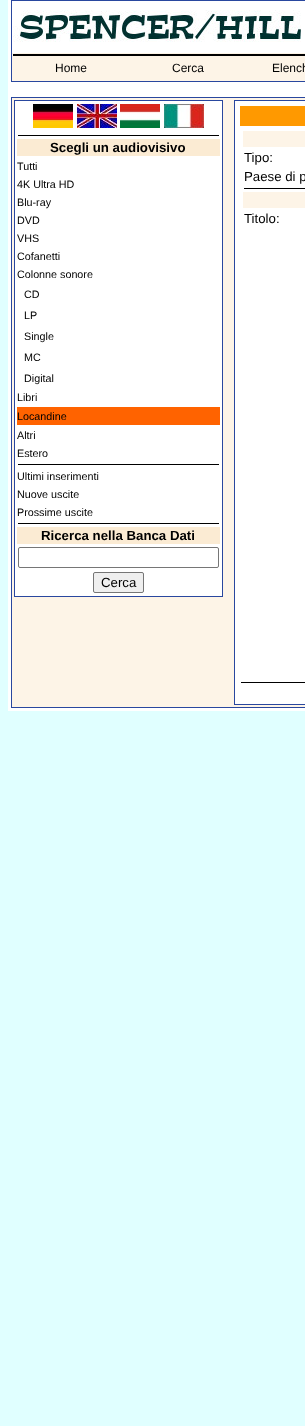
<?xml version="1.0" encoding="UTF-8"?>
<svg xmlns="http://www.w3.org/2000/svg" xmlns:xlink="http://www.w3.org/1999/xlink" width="305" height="1426">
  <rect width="100%" height="100%" fill="#e0ffff" />
  <rect x="8" width="297" height="711" fill="#ffffff" />
  <rect x="11.5" y="0.5" width="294" height="81" fill="none" stroke="#29479f" />
  <image x="13" y="10" width="288" height="32" xlink:href="image1.png" />
  <rect x="12" y="53" width="293" height="28" fill="#fdf4e7" />
  <rect x="13" y="54" width="292" height="2" fill="#000000" />
  <rect x="11.5" y="97.5" width="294" height="610" fill="#fdf4e7" stroke="#29479f" />
  <rect x="14.5" y="100.5" width="208" height="496" fill="#ffffff" stroke="#29479f" />
  <image x="33" y="104" width="40" height="24" xlink:href="image2.png" />
  <image x="77" y="104" width="40" height="24" xlink:href="image3.png" />
  <image x="120" y="104" width="40" height="24" xlink:href="image4.png" />
  <image x="164" y="104" width="40" height="24" xlink:href="image5.png" />
  <rect x="18" y="135" width="201" height="1" fill="#000000" />
  <rect x="17" y="139" width="203" height="17" fill="#fbebd3" />
  <rect x="17" y="407" width="203" height="18" fill="#ff6300" />
  <rect x="18" y="464" width="201" height="1" fill="#000000" />
  <rect x="18" y="523" width="201" height="1" fill="#000000" />
  <rect x="17" y="527" width="203" height="17" fill="#fbebd3" />
  <rect x="18.5" y="547.5" width="200" height="20" rx="1.5" fill="none" stroke="#767676" />
  <rect x="93.5" y="572.5" width="50" height="20" rx="1.5" fill="#efefef" stroke="#767676" />
  <rect x="234.5" y="100.5" width="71" height="604" fill="#ffffff" stroke="#29479f" />
  <rect x="240" y="106" width="65" height="20" fill="#ff9900" />
  <rect x="243" y="131" width="62" height="16" fill="#fdf4e7" />
  <rect x="244" y="188" width="61" height="1" fill="#000000" />
  <rect x="243" y="192" width="62" height="16" fill="#fdf4e7" />
  <rect x="241" y="682" width="64" height="1" fill="#000000" />
  <text x="55" y="72" style="font-family: Liberation Sans; font-size: 12px; fill: #000000">Home</text>
  <text x="172" y="72" style="font-family: Liberation Sans; font-size: 12px; fill: #000000">Cerca</text>
  <text x="272" y="72" style="font-family: Liberation Sans; font-size: 12px; fill: #000000">Elench</text>
  <text x="50" y="152" style="font-family: Liberation Sans; font-size: 13.25px; font-weight: bold; fill: #000000">Scegli un audiovisivo</text>
  <text x="17" y="170" style="font-family: Liberation Sans; font-size: 10.75px; fill: #000000">Tutti</text>
  <text x="17" y="188" style="font-family: Liberation Sans; font-size: 10.75px; fill: #000000">4K Ultra HD</text>
  <text x="17" y="206" style="font-family: Liberation Sans; font-size: 10.75px; fill: #000000">Blu-ray</text>
  <text x="17" y="224" style="font-family: Liberation Sans; font-size: 10.75px; fill: #000000">DVD</text>
  <text x="17" y="242" style="font-family: Liberation Sans; font-size: 10.75px; fill: #000000">VHS</text>
  <text x="17" y="260" style="font-family: Liberation Sans; font-size: 10.75px; fill: #000000">Cofanetti</text>
  <text x="17" y="278" style="font-family: Liberation Sans; font-size: 10.75px; fill: #000000">Colonne sonore</text>
  <text x="24" y="298" style="font-family: Liberation Sans; font-size: 10.75px; fill: #000000">CD</text>
  <text x="24" y="319" style="font-family: Liberation Sans; font-size: 10.75px; fill: #000000">LP</text>
  <text x="24" y="340" style="font-family: Liberation Sans; font-size: 10.75px; fill: #000000">Single</text>
  <text x="24" y="361" style="font-family: Liberation Sans; font-size: 10.75px; fill: #000000">MC</text>
  <text x="24" y="382" style="font-family: Liberation Sans; font-size: 10.75px; fill: #000000">Digital</text>
  <text x="17" y="401" style="font-family: Liberation Sans; font-size: 10.75px; fill: #000000">Libri</text>
  <text x="17" y="420" style="font-family: Liberation Sans; font-size: 10.75px; fill: #000000">Locandine</text>
  <text x="17" y="439" style="font-family: Liberation Sans; font-size: 10.75px; fill: #000000">Altri</text>
  <text x="17" y="457" style="font-family: Liberation Sans; font-size: 10.75px; fill: #000000">Estero</text>
  <text x="17" y="480" style="font-family: Liberation Sans; font-size: 10.75px; fill: #000000">Ultimi inserimenti</text>
  <text x="17" y="498" style="font-family: Liberation Sans; font-size: 10.75px; fill: #000000">Nuove uscite</text>
  <text x="17" y="516" style="font-family: Liberation Sans; font-size: 10.75px; fill: #000000">Prossime uscite</text>
  <text x="41" y="540" style="font-family: Liberation Sans; font-size: 13.25px; font-weight: bold; fill: #000000">Ricerca nella Banca Dati</text>
  <text x="101" y="587" style="font-family: Liberation Sans; font-size: 13.25px; fill: #000000">Cerca</text>
  <text x="244" y="162" style="font-family: Liberation Sans; font-size: 13.25px; fill: #000000">Tipo:</text>
  <text x="244" y="181" style="font-family: Liberation Sans; font-size: 13.25px; fill: #000000">Paese di p</text>
  <text x="244" y="223" style="font-family: Liberation Sans; font-size: 13.25px; fill: #000000">Titolo:</text>
</svg>
